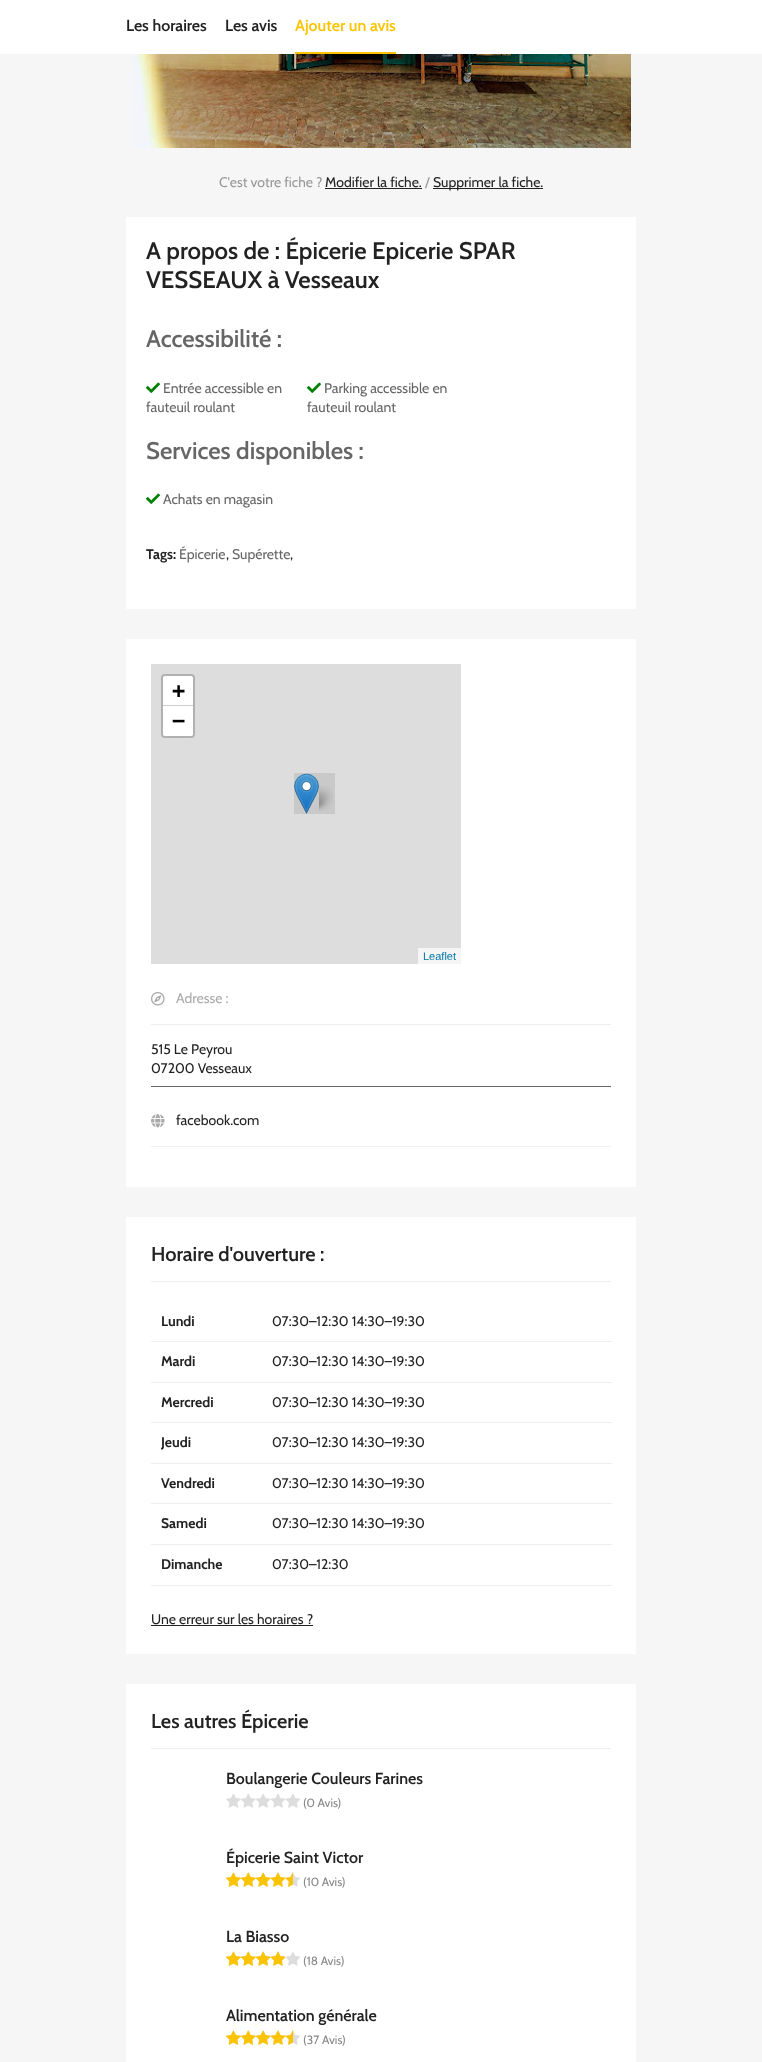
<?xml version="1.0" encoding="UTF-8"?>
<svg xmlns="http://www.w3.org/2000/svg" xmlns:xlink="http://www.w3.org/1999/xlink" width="762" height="2062">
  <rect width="100%" height="100%" fill="#f6f6f6" />
  <rect width="762" height="54" fill="#ffffff" />
  <rect x="295" y="52" width="101" height="2" fill="#fcc400" />
  <image x="131" y="54" width="500" height="94" xlink:href="image1.png" />
  <rect x="325" y="188" width="97" height="1" fill="#222222" />
  <rect x="433" y="188" width="110" height="1" fill="#222222" />
  <rect x="126" y="217" width="510" height="392" fill="#ffffff" />
  <image x="146" y="382" width="14" height="11" xlink:href="image2.png" />
  <image x="307" y="382" width="14" height="11" xlink:href="image2.png" />
  <image x="146" y="493" width="14" height="11" xlink:href="image2.png" />
  <rect x="126" y="639" width="510" height="548" fill="#ffffff" />
  <rect x="151" y="664" width="310" height="300" fill="#dddddd" />
  <rect x="162" y="675" width="32" height="62" rx="3" fill="none" stroke="#b1b1b1" stroke-width="2" />
  <path d="M 165 676 h 26 c 1 0 2 1 2 2 v 28 h -30 v -28 c 0 -1 1 -2 2 -2 z" fill="#ffffff" />
  <rect x="163" y="705" width="30" height="1" fill="#cccccc" />
  <path d="M 163 706 h 30 v 28 c 0 1 -1 2 -2 2 h -26 c -1 0 -2 -1 -2 -2 z" fill="#ffffff" />
  <rect x="418" y="948" width="43" height="16" fill="#f5f5f5" />
  <rect x="294" y="773" width="41" height="41" fill="#c9c9c9" />
  <image x="319" y="786" width="14" height="25" xlink:href="image3.png" />
  <image x="294" y="773" width="25" height="41" xlink:href="image4.png" />
  <rect x="151" y="1024" width="460" height="1" fill="#eeeeee" />
  <image x="151" y="992" width="14" height="14" xlink:href="image5.png" />
  <rect x="151" y="1086" width="460" height="1" fill="#666666" />
  <rect x="151" y="1146" width="460" height="1" fill="#eeeeee" />
  <image x="151" y="1114" width="14" height="14" xlink:href="image6.png" />
  <rect x="126" y="1217" width="510" height="437" fill="#ffffff" />
  <rect x="151" y="1281" width="460" height="1" fill="#eeeeee" />
  <rect x="151" y="1341" width="461" height="1" fill="#eeeeee" />
  <rect x="151" y="1382" width="461" height="1" fill="#eeeeee" />
  <rect x="151" y="1422" width="461" height="1" fill="#eeeeee" />
  <rect x="151" y="1463" width="461" height="1" fill="#eeeeee" />
  <rect x="151" y="1503" width="461" height="1" fill="#eeeeee" />
  <rect x="151" y="1544" width="461" height="1" fill="#eeeeee" />
  <rect x="151" y="1585" width="461" height="1" fill="#eeeeee" />
  <rect x="151" y="1625" width="162" height="1" fill="#222222" />
  <rect x="126" y="1684" width="510" height="378" fill="#ffffff" />
  <rect x="151" y="1748" width="460" height="1" fill="#eeeeee" />
  <image x="226" y="1793" width="74" height="15" xlink:href="image7.png" />
  <image x="226" y="1872" width="74" height="15" xlink:href="image7.png" />
  <image x="226" y="1872" width="67" height="15" xlink:href="image8.png" />
  <image x="226" y="1951" width="74" height="15" xlink:href="image7.png" />
  <image x="226" y="1951" width="59" height="15" xlink:href="image9.png" />
  <image x="226" y="2030" width="74" height="15" xlink:href="image7.png" />
  <image x="226" y="2030" width="67" height="15" xlink:href="image8.png" />
  <text x="126" y="31" style="font-family: Cabin; font-size: 16px; font-weight: 600; fill: #222222">Les horaires</text>
  <text x="225" y="31" style="font-family: Cabin; font-size: 16px; font-weight: 600; fill: #222222">Les avis</text>
  <text x="295" y="31" style="font-family: Cabin; font-size: 16px; font-weight: 600; fill: #fcc400">Ajouter un avis</text>
  <text x="219" y="187" style="font-family: Cabin; font-size: 14px; fill: #999999">C'est votre fiche ?</text>
  <text x="325" y="187" style="font-family: Cabin; font-size: 14px; fill: #222222">Modifier la fiche.</text>
  <text x="425" y="187" style="font-family: Cabin; font-size: 14px; fill: #999999">/</text>
  <text x="433" y="187" style="font-family: Cabin; font-size: 14px; fill: #222222">Supprimer la fiche.</text>
  <text x="146" y="259" style="font-family: Cabin; font-size: 24px; font-weight: 600; fill: #222222">A propos de : Épicerie Epicerie SPAR</text>
  <text x="146" y="288" style="font-family: Cabin; font-size: 24px; font-weight: 600; fill: #222222">VESSEAUX à Vesseaux</text>
  <text x="146" y="347" style="font-family: Cabin; font-size: 24px; font-weight: 600; fill: #666666">Accessibilité :</text>
  <text x="163" y="393" style="font-family: Cabin; font-size: 14px; fill: #666666">Entrée accessible en</text>
  <text x="146" y="412" style="font-family: Cabin; font-size: 14px; fill: #666666">fauteuil roulant</text>
  <text x="324" y="393" style="font-family: Cabin; font-size: 14px; fill: #666666">Parking accessible en</text>
  <text x="307" y="412" style="font-family: Cabin; font-size: 14px; fill: #666666">fauteuil roulant</text>
  <text x="146" y="459" style="font-family: Cabin; font-size: 24px; font-weight: 600; fill: #666666">Services disponibles :</text>
  <text x="163" y="504" style="font-family: Cabin; font-size: 14px; fill: #666666">Achats en magasin</text>
  <text x="146" y="559" style="font-family: Cabin; font-size: 14px; font-weight: bold; fill: #222222">Tags:</text>
  <text x="179" y="559" style="font-family: Cabin; font-size: 14px; fill: #666666">Épicerie</text>
  <text x="226" y="559" style="font-family: Cabin; font-size: 14px; fill: #222222">,</text>
  <text x="232" y="559" style="font-family: Cabin; font-size: 14px; fill: #666666">Supérette</text>
  <text x="290" y="559" style="font-family: Cabin; font-size: 14px; fill: #222222">,</text>
  <text x="172" y="698" style="font-family: DejaVu Sans Mono; font-size: 22px; font-weight: bold; fill: #000000">+</text>
  <text x="172" y="728" style="font-family: DejaVu Sans Mono; font-size: 22px; font-weight: bold; fill: #000000">−</text>
  <text x="423" y="960" style="font-family: Liberation Sans; font-size: 11px; fill: #0078a8">Leaflet</text>
  <text x="176" y="1003" style="font-family: Cabin; font-size: 14px; fill: #aaaaaa">Adresse :</text>
  <text x="151" y="1054" style="font-family: Cabin; font-size: 14px; fill: #222222">515 Le Peyrou</text>
  <text x="151" y="1073" style="font-family: Cabin; font-size: 14px; fill: #222222">07200 Vesseaux</text>
  <text x="176" y="1125" style="font-family: Cabin; font-size: 14px; fill: #222222">facebook.com</text>
  <text x="151" y="1261" style="font-family: Cabin; font-size: 20px; font-weight: 600; fill: #222222">Horaire d'ouverture :</text>
  <text x="161" y="1326" style="font-family: Cabin; font-size: 14px; font-weight: bold; fill: #222222">Lundi</text>
  <text x="272" y="1326" style="font-family: Cabin; font-size: 14px; fill: #222222">07:30–12:30 14:30–19:30</text>
  <text x="161" y="1366" style="font-family: Cabin; font-size: 14px; font-weight: bold; fill: #222222">Mardi</text>
  <text x="272" y="1366" style="font-family: Cabin; font-size: 14px; fill: #222222">07:30–12:30 14:30–19:30</text>
  <text x="161" y="1407" style="font-family: Cabin; font-size: 14px; font-weight: bold; fill: #222222">Mercredi</text>
  <text x="272" y="1407" style="font-family: Cabin; font-size: 14px; fill: #222222">07:30–12:30 14:30–19:30</text>
  <text x="161" y="1447" style="font-family: Cabin; font-size: 14px; font-weight: bold; fill: #222222">Jeudi</text>
  <text x="272" y="1447" style="font-family: Cabin; font-size: 14px; fill: #222222">07:30–12:30 14:30–19:30</text>
  <text x="161" y="1488" style="font-family: Cabin; font-size: 14px; font-weight: bold; fill: #222222">Vendredi</text>
  <text x="272" y="1488" style="font-family: Cabin; font-size: 14px; fill: #222222">07:30–12:30 14:30–19:30</text>
  <text x="161" y="1528" style="font-family: Cabin; font-size: 14px; font-weight: bold; fill: #222222">Samedi</text>
  <text x="272" y="1528" style="font-family: Cabin; font-size: 14px; fill: #222222">07:30–12:30 14:30–19:30</text>
  <text x="161" y="1569" style="font-family: Cabin; font-size: 14px; font-weight: bold; fill: #222222">Dimanche</text>
  <text x="272" y="1569" style="font-family: Cabin; font-size: 14px; fill: #222222">07:30–12:30</text>
  <text x="151" y="1624" style="font-family: Cabin; font-size: 14px; fill: #222222">Une erreur sur les horaires ?</text>
  <text x="151" y="1728" style="font-family: Cabin; font-size: 20px; font-weight: 600; fill: #222222">Les autres Épicerie</text>
  <text x="226" y="1784" style="font-family: Cabin; font-size: 16px; font-weight: 600; fill: #222222">Boulangerie Couleurs Farines</text>
  <text x="303" y="1807" style="font-family: Cabin; font-size: 12px; fill: #888888">(0 Avis)</text>
  <text x="226" y="1863" style="font-family: Cabin; font-size: 16px; font-weight: 600; fill: #222222">Épicerie Saint Victor</text>
  <text x="303" y="1886" style="font-family: Cabin; font-size: 12px; fill: #888888">(10 Avis)</text>
  <text x="226" y="1942" style="font-family: Cabin; font-size: 16px; font-weight: 600; fill: #222222">La Biasso</text>
  <text x="303" y="1965" style="font-family: Cabin; font-size: 12px; fill: #888888">(18 Avis)</text>
  <text x="226" y="2021" style="font-family: Cabin; font-size: 16px; font-weight: 600; fill: #222222">Alimentation générale</text>
  <text x="303" y="2044" style="font-family: Cabin; font-size: 12px; fill: #888888">(37 Avis)</text>
</svg>
